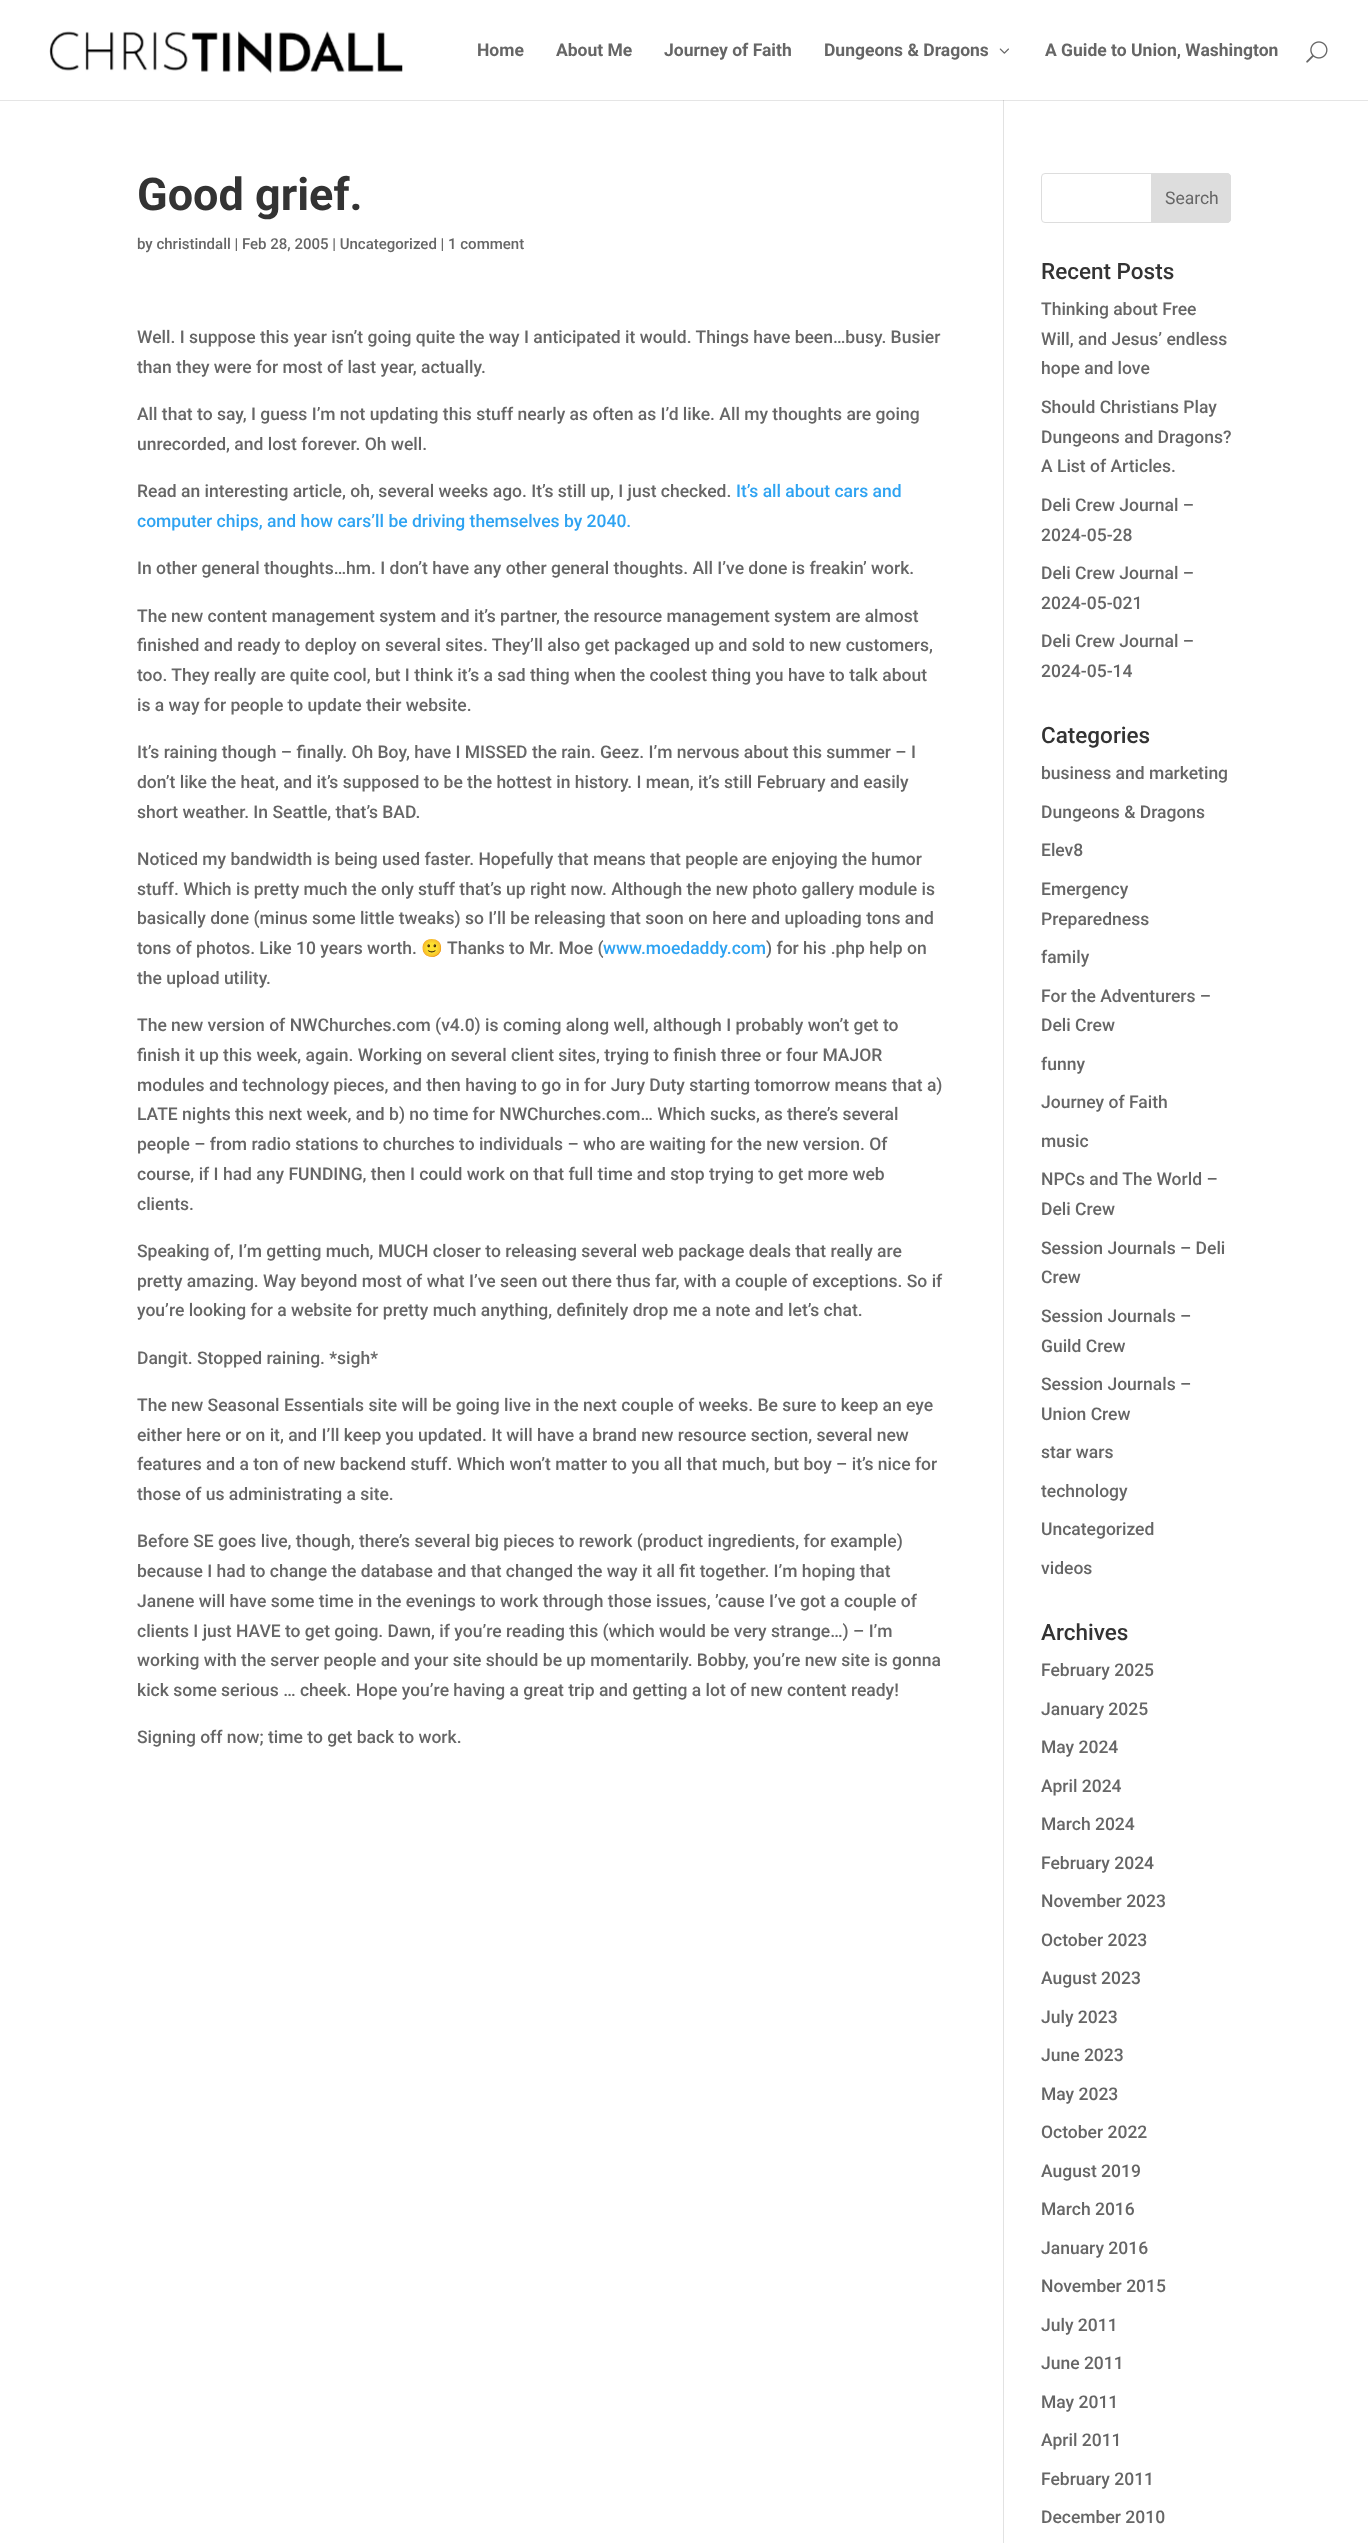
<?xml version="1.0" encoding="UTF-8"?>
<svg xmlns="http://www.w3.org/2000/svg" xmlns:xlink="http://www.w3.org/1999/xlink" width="1368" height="2543">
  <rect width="100%" height="100%" fill="#ffffff" />
  <rect x="1003" y="100" width="1" height="2443" fill="#e2e2e2" />
  <path d="M 0 100 v 1 h 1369 v -100 v 99 z" fill="#000000" fill-opacity="0.1" />
  <image x="49" y="31" width="354" height="43" xlink:href="image1.png" />
  <image x="999" y="48" width="10" height="6" xlink:href="image2.png" />
  <image x="1306" y="41" width="22" height="22" xlink:href="image3.png" />
  <rect x="1041.5" y="173.5" width="189" height="49" rx="3.5" fill="none" stroke="#dddddd" />
  <path d="M 1151.5 173.5 h 75.5 c 2 0 3.5 1.5 3.5 3.5 v 42 c 0 2 -1.5 3.5 -3.5 3.5 h -75.5 z" fill="#dddddd" stroke="#dddddd" />
  <text x="477" y="56" style="font-family: Roboto; font-size: 17.5px; font-weight: bold; fill: #666666">Home</text>
  <text x="556" y="56" style="font-family: Roboto; font-size: 17.5px; font-weight: bold; fill: #666666">About Me</text>
  <text x="664" y="56" style="font-family: Roboto; font-size: 17.5px; font-weight: bold; fill: #666666">Journey of Faith</text>
  <text x="824" y="56" style="font-family: Roboto; font-size: 17.5px; font-weight: bold; fill: #666666">Dungeons &amp; Dragons</text>
  <text x="1045" y="56" style="font-family: Roboto; font-size: 17.5px; font-weight: bold; fill: #666666">A Guide to Union, Washington</text>
  <text x="137" y="210" style="font-family: Roboto; font-size: 45px; font-weight: bold; fill: #333333">Good grief.</text>
  <text x="137" y="249" style="font-family: Roboto; font-size: 15px; font-weight: 500; fill: #666666">by christindall | Feb 28, 2005 | Uncategorized | 1 comment</text>
  <text x="137" y="343" style="font-family: Roboto; font-size: 17.5px; font-weight: 500; fill: #666666">Well. I suppose this year isn’t going quite the way I anticipated it would. Things have been…busy. Busier</text>
  <text x="137" y="373" style="font-family: Roboto; font-size: 17.5px; font-weight: 500; fill: #666666">than they were for most of last year, actually.</text>
  <text x="137" y="420" style="font-family: Roboto; font-size: 17.5px; font-weight: 500; fill: #666666">All that to say, I guess I’m not updating this stuff nearly as often as I’d like. All my thoughts are going</text>
  <text x="137" y="450" style="font-family: Roboto; font-size: 17.5px; font-weight: 500; fill: #666666">unrecorded, and lost forever. Oh well.</text>
  <text x="137" y="497" style="font-family: Roboto; font-size: 17.5px; font-weight: 500; fill: #666666">Read an interesting article, oh, several weeks ago. It’s still up, I just checked.</text>
  <text x="736" y="497" style="font-family: Roboto; font-size: 17.5px; font-weight: 500; fill: #2ea3f2">It’s all about cars and</text>
  <text x="137" y="527" style="font-family: Roboto; font-size: 17.5px; font-weight: 500; fill: #2ea3f2">computer chips, and how cars’ll be driving themselves by 2040.</text>
  <text x="137" y="574" style="font-family: Roboto; font-size: 17.5px; font-weight: 500; fill: #666666">In other general thoughts…hm. I don’t have any other general thoughts. All I’ve done is freakin’ work.</text>
  <text x="137" y="622" style="font-family: Roboto; font-size: 17.5px; font-weight: 500; fill: #666666">The new content management system and it’s partner, the resource management system are almost</text>
  <text x="137" y="651" style="font-family: Roboto; font-size: 17.5px; font-weight: 500; fill: #666666">finished and ready to deploy on several sites. They’ll also get packaged up and sold to new customers,</text>
  <text x="137" y="681" style="font-family: Roboto; font-size: 17.5px; font-weight: 500; fill: #666666">too. They really are quite cool, but I think it’s a sad thing when the coolest thing you have to talk about</text>
  <text x="137" y="711" style="font-family: Roboto; font-size: 17.5px; font-weight: 500; fill: #666666">is a way for people to update their website.</text>
  <text x="137" y="758" style="font-family: Roboto; font-size: 17.5px; font-weight: 500; fill: #666666">It’s raining though – finally. Oh Boy, have I MISSED the rain. Geez. I’m nervous about this summer – I</text>
  <text x="137" y="788" style="font-family: Roboto; font-size: 17.5px; font-weight: 500; fill: #666666">don’t like the heat, and it’s supposed to be the hottest in history. I mean, it’s still February and easily</text>
  <text x="137" y="818" style="font-family: Roboto; font-size: 17.5px; font-weight: 500; fill: #666666">short weather. In Seattle, that’s BAD.</text>
  <text x="137" y="865" style="font-family: Roboto; font-size: 17.5px; font-weight: 500; fill: #666666">Noticed my bandwidth is being used faster. Hopefully that means that people are enjoying the humor</text>
  <text x="137" y="895" style="font-family: Roboto; font-size: 17.5px; font-weight: 500; fill: #666666">stuff. Which is pretty much the only stuff that’s up right now. Although the new photo gallery module is</text>
  <text x="137" y="924" style="font-family: Roboto; font-size: 17.5px; font-weight: 500; fill: #666666">basically done (minus some little tweaks) so I’ll be releasing that soon on here and uploading tons and</text>
  <text x="137" y="954" style="font-family: Roboto; font-size: 17.5px; font-weight: 500; fill: #666666">tons of photos. Like 10 years worth.</text>
  <text x="421" y="954" style="font-family: Noto Color Emoji; font-size: 17.5px; fill: #666666">🙂</text>
  <text x="447" y="954" style="font-family: Roboto; font-size: 17.5px; font-weight: 500; fill: #666666">Thanks to Mr. Moe (</text>
  <text x="603" y="954" style="font-family: Roboto; font-size: 17.5px; font-weight: 500; fill: #2ea3f2">www.moedaddy.com</text>
  <text x="766" y="954" style="font-family: Roboto; font-size: 17.5px; font-weight: 500; fill: #666666">) for his .php help on</text>
  <text x="137" y="984" style="font-family: Roboto; font-size: 17.5px; font-weight: 500; fill: #666666">the upload utility.</text>
  <text x="137" y="1031" style="font-family: Roboto; font-size: 17.5px; font-weight: 500; fill: #666666">The new version of NWChurches.com (v4.0) is coming along well, although I probably won’t get to</text>
  <text x="137" y="1061" style="font-family: Roboto; font-size: 17.5px; font-weight: 500; fill: #666666">finish it up this week, again. Working on several client sites, trying to finish three or four MAJOR</text>
  <text x="137" y="1091" style="font-family: Roboto; font-size: 17.5px; font-weight: 500; fill: #666666">modules and technology pieces, and then having to go in for Jury Duty starting tomorrow means that a)</text>
  <text x="137" y="1120" style="font-family: Roboto; font-size: 17.5px; font-weight: 500; fill: #666666">LATE nights this next week, and b) no time for NWChurches.com… Which sucks, as there’s several</text>
  <text x="137" y="1150" style="font-family: Roboto; font-size: 17.5px; font-weight: 500; fill: #666666">people – from radio stations to churches to individuals – who are waiting for the new version. Of</text>
  <text x="137" y="1180" style="font-family: Roboto; font-size: 17.5px; font-weight: 500; fill: #666666">course, if I had any FUNDING, then I could work on that full time and stop trying to get more web</text>
  <text x="137" y="1210" style="font-family: Roboto; font-size: 17.5px; font-weight: 500; fill: #666666">clients.</text>
  <text x="137" y="1257" style="font-family: Roboto; font-size: 17.5px; font-weight: 500; fill: #666666">Speaking of, I’m getting much, MUCH closer to releasing several web package deals that really are</text>
  <text x="137" y="1287" style="font-family: Roboto; font-size: 17.5px; font-weight: 500; fill: #666666">pretty amazing. Way beyond most of what I’ve seen out there thus far, with a couple of exceptions. So if</text>
  <text x="137" y="1316" style="font-family: Roboto; font-size: 17.5px; font-weight: 500; fill: #666666">you’re looking for a website for pretty much anything, definitely drop me a note and let’s chat.</text>
  <text x="137" y="1364" style="font-family: Roboto; font-size: 17.5px; font-weight: 500; fill: #666666">Dangit. Stopped raining. *sigh*</text>
  <text x="137" y="1411" style="font-family: Roboto; font-size: 17.5px; font-weight: 500; fill: #666666">The new Seasonal Essentials site will be going live in the next couple of weeks. Be sure to keep an eye</text>
  <text x="137" y="1441" style="font-family: Roboto; font-size: 17.5px; font-weight: 500; fill: #666666">either here or on it, and I’ll keep you updated. It will have a brand new resource section, several new</text>
  <text x="137" y="1470" style="font-family: Roboto; font-size: 17.5px; font-weight: 500; fill: #666666">features and a ton of new backend stuff. Which won’t matter to you all that much, but boy – it’s nice for</text>
  <text x="137" y="1500" style="font-family: Roboto; font-size: 17.5px; font-weight: 500; fill: #666666">those of us administrating a site.</text>
  <text x="137" y="1547" style="font-family: Roboto; font-size: 17.5px; font-weight: 500; fill: #666666">Before SE goes live, though, there’s several big pieces to rework (product ingredients, for example)</text>
  <text x="137" y="1577" style="font-family: Roboto; font-size: 17.5px; font-weight: 500; fill: #666666">because I had to change the database and that changed the way it all fit together. I’m hoping that</text>
  <text x="137" y="1607" style="font-family: Roboto; font-size: 17.5px; font-weight: 500; fill: #666666">Janene will have some time in the evenings to work through those issues, ’cause I’ve got a couple of</text>
  <text x="137" y="1637" style="font-family: Roboto; font-size: 17.5px; font-weight: 500; fill: #666666">clients I just HAVE to get going. Dawn, if you’re reading this (which would be very strange…) – I’m</text>
  <text x="137" y="1666" style="font-family: Roboto; font-size: 17.5px; font-weight: 500; fill: #666666">working with the server people and your site should be up momentarily. Bobby, you’re new site is gonna</text>
  <text x="137" y="1696" style="font-family: Roboto; font-size: 17.5px; font-weight: 500; fill: #666666">kick some serious … cheek. Hope you’re having a great trip and getting a lot of new content ready!</text>
  <text x="137" y="1743" style="font-family: Roboto; font-size: 17.5px; font-weight: 500; fill: #666666">Signing off now; time to get back to work.</text>
  <text x="1165" y="204" style="font-family: Roboto; font-size: 17.5px; fill: #666666">Search</text>
  <text x="1041" y="279" style="font-family: Roboto; font-size: 22.5px; font-weight: 500; fill: #333333">Recent Posts</text>
  <text x="1041" y="315" style="font-family: Roboto; font-size: 17.5px; font-weight: 500; fill: #666666">Thinking about Free</text>
  <text x="1041" y="345" style="font-family: Roboto; font-size: 17.5px; font-weight: 500; fill: #666666">Will, and Jesus’ endless</text>
  <text x="1041" y="374" style="font-family: Roboto; font-size: 17.5px; font-weight: 500; fill: #666666">hope and love</text>
  <text x="1041" y="413" style="font-family: Roboto; font-size: 17.5px; font-weight: 500; fill: #666666">Should Christians Play</text>
  <text x="1041" y="443" style="font-family: Roboto; font-size: 17.5px; font-weight: 500; fill: #666666">Dungeons and Dragons?</text>
  <text x="1041" y="472" style="font-family: Roboto; font-size: 17.5px; font-weight: 500; fill: #666666">A List of Articles.</text>
  <text x="1041" y="511" style="font-family: Roboto; font-size: 17.5px; font-weight: 500; fill: #666666">Deli Crew Journal –</text>
  <text x="1041" y="541" style="font-family: Roboto; font-size: 17.5px; font-weight: 500; fill: #666666">2024-05-28</text>
  <text x="1041" y="579" style="font-family: Roboto; font-size: 17.5px; font-weight: 500; fill: #666666">Deli Crew Journal –</text>
  <text x="1041" y="609" style="font-family: Roboto; font-size: 17.5px; font-weight: 500; fill: #666666">2024-05-021</text>
  <text x="1041" y="647" style="font-family: Roboto; font-size: 17.5px; font-weight: 500; fill: #666666">Deli Crew Journal –</text>
  <text x="1041" y="677" style="font-family: Roboto; font-size: 17.5px; font-weight: 500; fill: #666666">2024-05-14</text>
  <text x="1041" y="743" style="font-family: Roboto; font-size: 22.5px; font-weight: 500; fill: #333333">Categories</text>
  <text x="1041" y="779" style="font-family: Roboto; font-size: 17.5px; font-weight: 500; fill: #666666">business and marketing</text>
  <text x="1041" y="818" style="font-family: Roboto; font-size: 17.5px; font-weight: 500; fill: #666666">Dungeons &amp; Dragons</text>
  <text x="1041" y="856" style="font-family: Roboto; font-size: 17.5px; font-weight: 500; fill: #666666">Elev8</text>
  <text x="1041" y="895" style="font-family: Roboto; font-size: 17.5px; font-weight: 500; fill: #666666">Emergency</text>
  <text x="1041" y="925" style="font-family: Roboto; font-size: 17.5px; font-weight: 500; fill: #666666">Preparedness</text>
  <text x="1041" y="963" style="font-family: Roboto; font-size: 17.5px; font-weight: 500; fill: #666666">family</text>
  <text x="1041" y="1002" style="font-family: Roboto; font-size: 17.5px; font-weight: 500; fill: #666666">For the Adventurers –</text>
  <text x="1041" y="1031" style="font-family: Roboto; font-size: 17.5px; font-weight: 500; fill: #666666">Deli Crew</text>
  <text x="1041" y="1070" style="font-family: Roboto; font-size: 17.5px; font-weight: 500; fill: #666666">funny</text>
  <text x="1041" y="1108" style="font-family: Roboto; font-size: 17.5px; font-weight: 500; fill: #666666">Journey of Faith</text>
  <text x="1041" y="1147" style="font-family: Roboto; font-size: 17.5px; font-weight: 500; fill: #666666">music</text>
  <text x="1041" y="1185" style="font-family: Roboto; font-size: 17.5px; font-weight: 500; fill: #666666">NPCs and The World –</text>
  <text x="1041" y="1215" style="font-family: Roboto; font-size: 17.5px; font-weight: 500; fill: #666666">Deli Crew</text>
  <text x="1041" y="1254" style="font-family: Roboto; font-size: 17.5px; font-weight: 500; fill: #666666">Session Journals – Deli</text>
  <text x="1041" y="1283" style="font-family: Roboto; font-size: 17.5px; font-weight: 500; fill: #666666">Crew</text>
  <text x="1041" y="1322" style="font-family: Roboto; font-size: 17.5px; font-weight: 500; fill: #666666">Session Journals –</text>
  <text x="1041" y="1352" style="font-family: Roboto; font-size: 17.5px; font-weight: 500; fill: #666666">Guild Crew</text>
  <text x="1041" y="1390" style="font-family: Roboto; font-size: 17.5px; font-weight: 500; fill: #666666">Session Journals –</text>
  <text x="1041" y="1420" style="font-family: Roboto; font-size: 17.5px; font-weight: 500; fill: #666666">Union Crew</text>
  <text x="1041" y="1458" style="font-family: Roboto; font-size: 17.5px; font-weight: 500; fill: #666666">star wars</text>
  <text x="1041" y="1497" style="font-family: Roboto; font-size: 17.5px; font-weight: 500; fill: #666666">technology</text>
  <text x="1041" y="1535" style="font-family: Roboto; font-size: 17.5px; font-weight: 500; fill: #666666">Uncategorized</text>
  <text x="1041" y="1574" style="font-family: Roboto; font-size: 17.5px; font-weight: 500; fill: #666666">videos</text>
  <text x="1041" y="1640" style="font-family: Roboto; font-size: 22.5px; font-weight: 500; fill: #333333">Archives</text>
  <text x="1041" y="1676" style="font-family: Roboto; font-size: 17.5px; font-weight: 500; fill: #666666">February 2025</text>
  <text x="1041" y="1715" style="font-family: Roboto; font-size: 17.5px; font-weight: 500; fill: #666666">January 2025</text>
  <text x="1041" y="1753" style="font-family: Roboto; font-size: 17.5px; font-weight: 500; fill: #666666">May 2024</text>
  <text x="1041" y="1792" style="font-family: Roboto; font-size: 17.5px; font-weight: 500; fill: #666666">April 2024</text>
  <text x="1041" y="1830" style="font-family: Roboto; font-size: 17.5px; font-weight: 500; fill: #666666">March 2024</text>
  <text x="1041" y="1869" style="font-family: Roboto; font-size: 17.5px; font-weight: 500; fill: #666666">February 2024</text>
  <text x="1041" y="1907" style="font-family: Roboto; font-size: 17.5px; font-weight: 500; fill: #666666">November 2023</text>
  <text x="1041" y="1946" style="font-family: Roboto; font-size: 17.5px; font-weight: 500; fill: #666666">October 2023</text>
  <text x="1041" y="1984" style="font-family: Roboto; font-size: 17.5px; font-weight: 500; fill: #666666">August 2023</text>
  <text x="1041" y="2023" style="font-family: Roboto; font-size: 17.5px; font-weight: 500; fill: #666666">July 2023</text>
  <text x="1041" y="2061" style="font-family: Roboto; font-size: 17.5px; font-weight: 500; fill: #666666">June 2023</text>
  <text x="1041" y="2100" style="font-family: Roboto; font-size: 17.5px; font-weight: 500; fill: #666666">May 2023</text>
  <text x="1041" y="2138" style="font-family: Roboto; font-size: 17.5px; font-weight: 500; fill: #666666">October 2022</text>
  <text x="1041" y="2177" style="font-family: Roboto; font-size: 17.5px; font-weight: 500; fill: #666666">August 2019</text>
  <text x="1041" y="2215" style="font-family: Roboto; font-size: 17.5px; font-weight: 500; fill: #666666">March 2016</text>
  <text x="1041" y="2254" style="font-family: Roboto; font-size: 17.5px; font-weight: 500; fill: #666666">January 2016</text>
  <text x="1041" y="2292" style="font-family: Roboto; font-size: 17.5px; font-weight: 500; fill: #666666">November 2015</text>
  <text x="1041" y="2331" style="font-family: Roboto; font-size: 17.5px; font-weight: 500; fill: #666666">July 2011</text>
  <text x="1041" y="2369" style="font-family: Roboto; font-size: 17.5px; font-weight: 500; fill: #666666">June 2011</text>
  <text x="1041" y="2408" style="font-family: Roboto; font-size: 17.5px; font-weight: 500; fill: #666666">May 2011</text>
  <text x="1041" y="2446" style="font-family: Roboto; font-size: 17.5px; font-weight: 500; fill: #666666">April 2011</text>
  <text x="1041" y="2485" style="font-family: Roboto; font-size: 17.5px; font-weight: 500; fill: #666666">February 2011</text>
  <text x="1041" y="2523" style="font-family: Roboto; font-size: 17.5px; font-weight: 500; fill: #666666">December 2010</text>
</svg>
